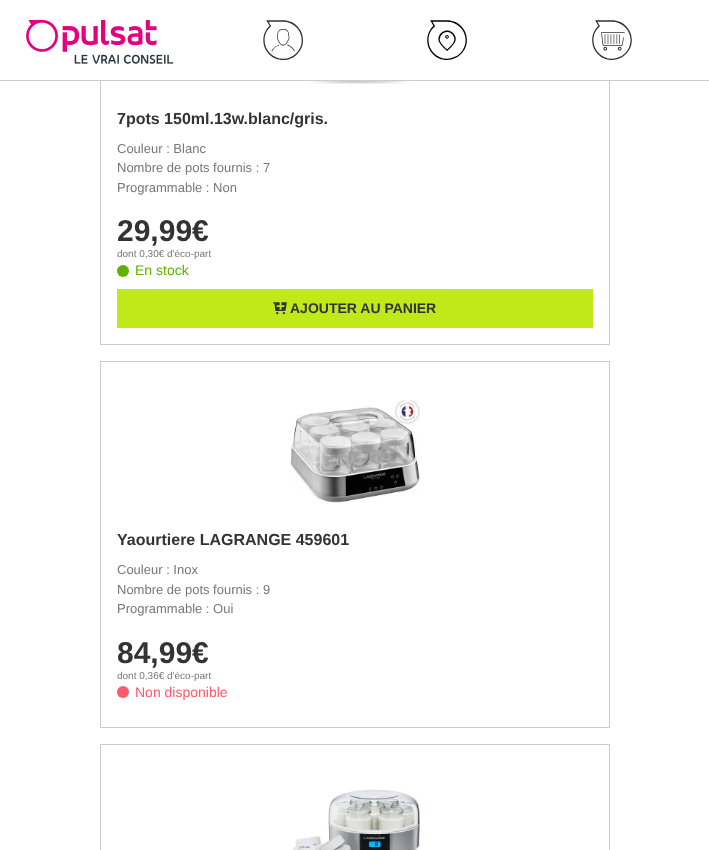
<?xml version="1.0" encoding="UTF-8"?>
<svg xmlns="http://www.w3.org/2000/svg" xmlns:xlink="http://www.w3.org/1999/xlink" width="709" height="850">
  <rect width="100%" height="100%" fill="#ffffff" />
  <rect x="100.5" y="-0.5" width="509" height="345" fill="none" stroke="#cccccc" />
  <rect x="100" width="510" height="80" fill="#ffffff" />
  <rect y="80" width="709" height="1" fill="#cccccc" />
  <image x="26" y="19" width="148" height="45" xlink:href="image1.png" />
  <image x="263" y="20" width="40" height="40" xlink:href="image2.png" />
  <image x="427" y="20" width="40" height="40" xlink:href="image3.png" />
  <image x="592" y="20" width="40" height="40" xlink:href="image4.png" />
  <image x="290" y="81" width="130" height="3" xlink:href="image5.png" />
  <circle cx="123" cy="271" r="6" fill="#60b200" />
  <rect x="117" y="289" width="476" height="39" fill="#bfe918" />
  <image x="273" y="302" width="14" height="13" xlink:href="image6.png" />
  <rect x="100.5" y="361.5" width="509" height="366" fill="none" stroke="#cccccc" />
  <image x="290" y="400" width="130" height="103" xlink:href="image7.png" />
  <circle cx="123" cy="692" r="6" fill="#fd596d" />
  <rect x="100.5" y="744.5" width="509" height="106" fill="none" stroke="#cccccc" />
  <image x="292" y="789" width="128" height="61" xlink:href="image8.png" />
  <text x="117" y="124" style="font-family: Liberation Sans; font-size: 16px; font-weight: bold; fill: #333333">7pots 150ml.13w.blanc/gris.</text>
  <text x="117" y="153" style="font-family: Liberation Sans; font-size: 13px; fill: #777777">Couleur : Blanc</text>
  <text x="117" y="172" style="font-family: Liberation Sans; font-size: 13px; fill: #777777">Nombre de pots fournis : 7</text>
  <text x="117" y="192" style="font-family: Liberation Sans; font-size: 13px; fill: #777777">Programmable : Non</text>
  <text x="117" y="241" style="font-family: Liberation Sans; font-size: 30px; font-weight: bold; fill: #333333">29,99€</text>
  <text x="117" y="257" style="font-family: Liberation Sans; font-size: 10px; fill: #777777">dont 0,30€ d'éco-part</text>
  <text x="135" y="275" style="font-family: Liberation Sans; font-size: 14px; fill: #60b200">En stock</text>
  <text x="290" y="313" style="font-family: Liberation Sans; font-size: 14px; font-weight: bold; fill: #333333">AJOUTER AU PANIER</text>
  <text x="117" y="545" style="font-family: Liberation Sans; font-size: 16px; font-weight: bold; fill: #333333">Yaourtiere LAGRANGE 459601</text>
  <text x="117" y="574" style="font-family: Liberation Sans; font-size: 13px; fill: #777777">Couleur : Inox</text>
  <text x="117" y="594" style="font-family: Liberation Sans; font-size: 13px; fill: #777777">Nombre de pots fournis : 9</text>
  <text x="117" y="613" style="font-family: Liberation Sans; font-size: 13px; fill: #777777">Programmable : Oui</text>
  <text x="117" y="663" style="font-family: Liberation Sans; font-size: 30px; font-weight: bold; fill: #333333">84,99€</text>
  <text x="117" y="679" style="font-family: Liberation Sans; font-size: 10px; fill: #777777">dont 0,36€ d'éco-part</text>
  <text x="135" y="697" style="font-family: Liberation Sans; font-size: 14px; fill: #fd596d">Non disponible</text>
</svg>
